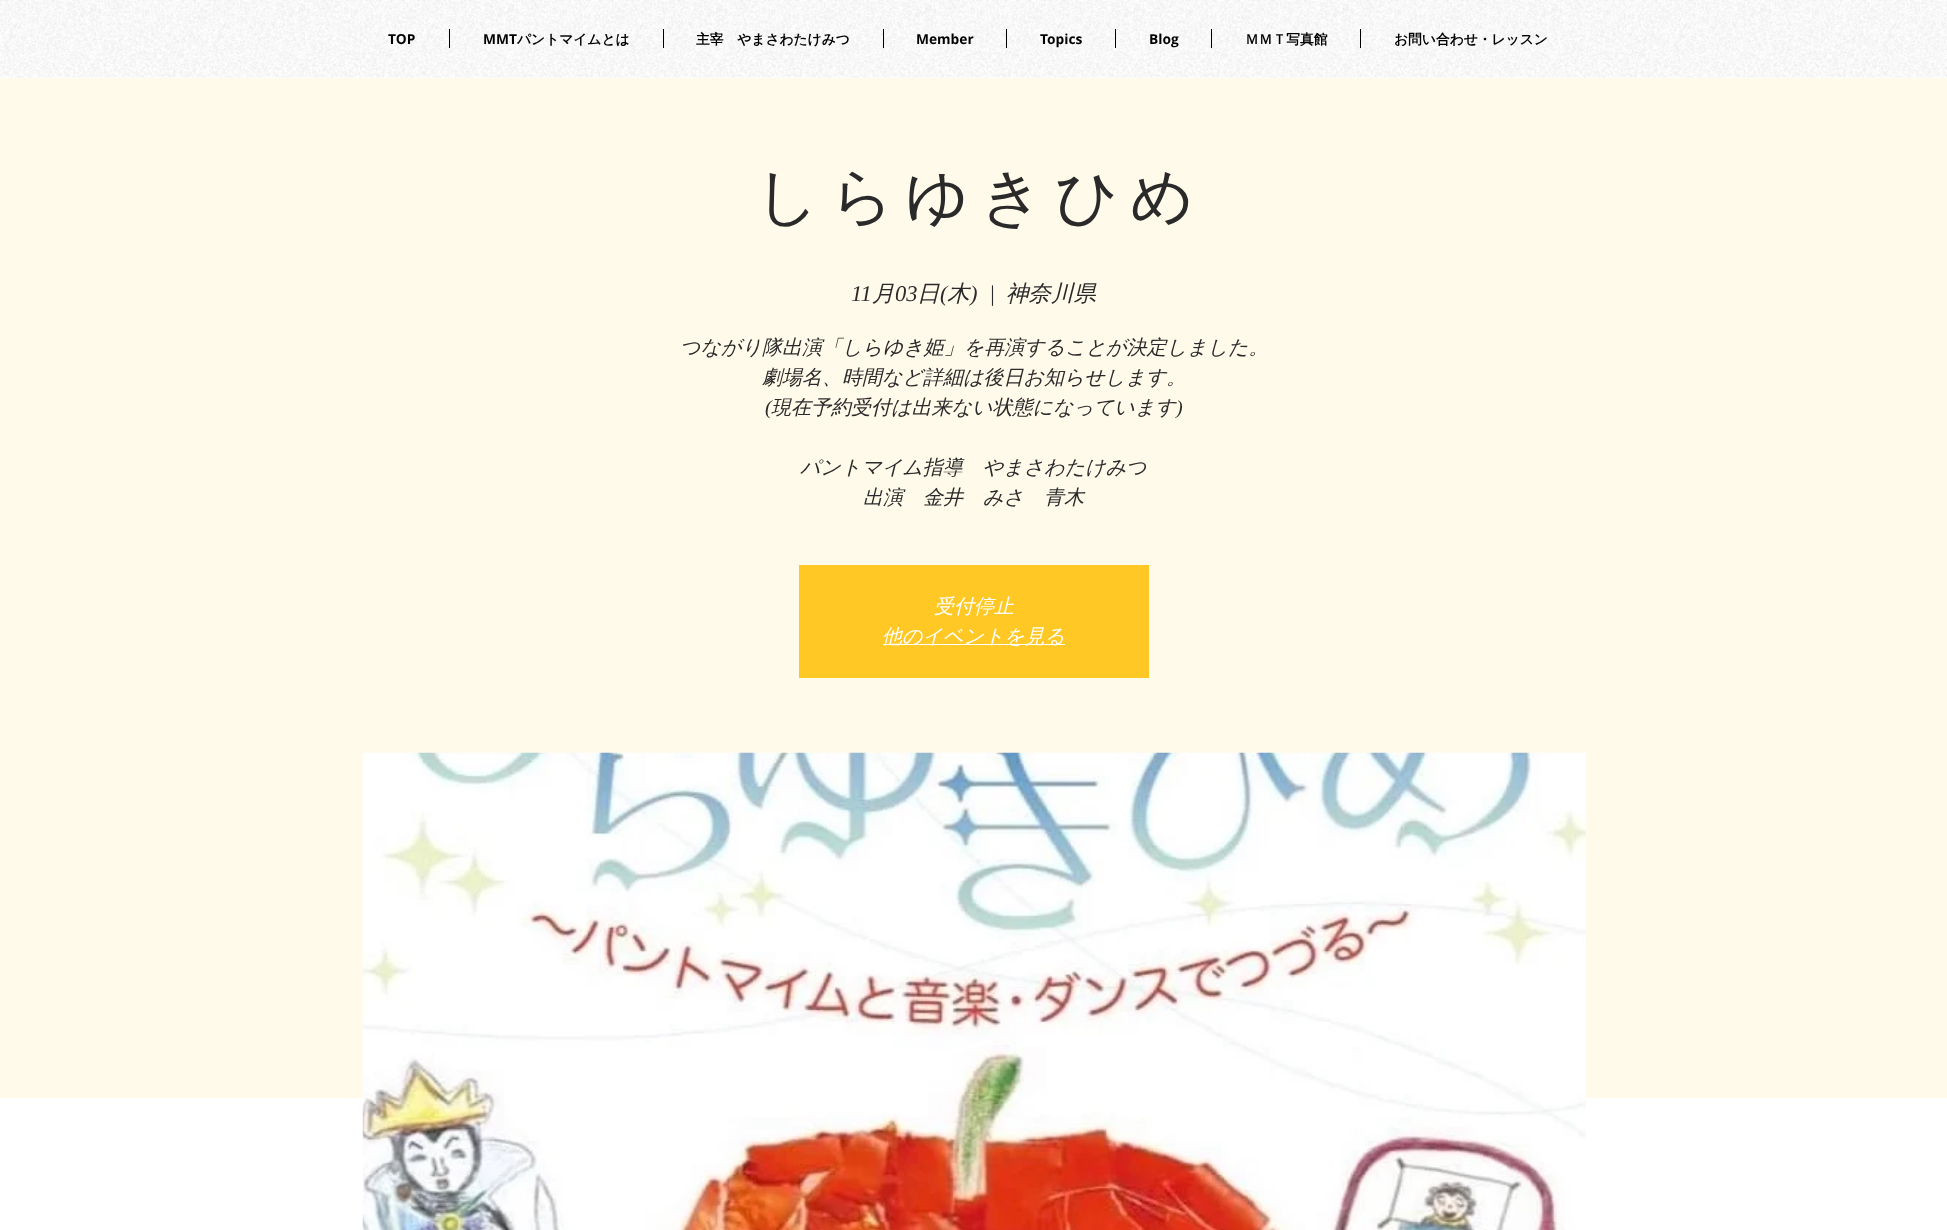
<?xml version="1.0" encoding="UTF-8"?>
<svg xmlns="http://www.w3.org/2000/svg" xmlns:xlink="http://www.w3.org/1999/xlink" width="1947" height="1230">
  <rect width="100%" height="100%" fill="#ffffff" />
  <image x="0" y="0" width="1947" height="78" xlink:href="image1.png" />
  <rect x="449" y="29" width="1" height="19" fill="#000000" />
  <rect x="663" y="29" width="1" height="19" fill="#000000" />
  <rect x="883" y="29" width="1" height="19" fill="#000000" />
  <rect x="1006" y="29" width="1" height="19" fill="#000000" />
  <rect x="1115" y="29" width="1" height="19" fill="#000000" />
  <rect x="1211" y="29" width="1" height="19" fill="#000000" />
  <rect x="1360" y="29" width="1" height="19" fill="#000000" />
  <rect y="78" width="1947" height="1020" fill="#fffaea" />
  <rect x="799" y="565" width="350" height="113" fill="#ffc824" />
  <rect x="883" y="644" width="182" height="1" fill="#ffffff" />
  <image x="362" y="752" width="1224" height="478" xlink:href="image2.png" />
  <text x="388" y="44" style="font-family: Open Sans; font-size: 13.75px; font-weight: bold; fill: #000000">TOP</text>
  <text x="483" y="44" style="font-family: Open Sans; font-size: 13.75px; font-weight: bold; fill: #000000">MMT</text>
  <text x="517" y="44" style="font-family: WenQuanYi Zen Hei; font-size: 13.75px; font-weight: bold; fill: #000000">パントマイムとは</text>
  <text x="696" y="44" style="font-family: WenQuanYi Zen Hei; font-size: 13.75px; font-weight: bold; fill: #000000">主宰　やまさわたけみつ</text>
  <text x="916" y="44" style="font-family: Open Sans; font-size: 13.75px; font-weight: bold; fill: #000000">Member</text>
  <text x="1040" y="44" style="font-family: Open Sans; font-size: 13.75px; font-weight: bold; fill: #000000">Topics</text>
  <text x="1149" y="44" style="font-family: Open Sans; font-size: 13.75px; font-weight: bold; fill: #000000">Blog</text>
  <text x="1245" y="44" style="font-family: WenQuanYi Zen Hei; font-size: 13.75px; font-weight: bold; fill: #000000">ＭＭＴ写真館</text>
  <text x="1394" y="44" style="font-family: WenQuanYi Zen Hei; font-size: 13.75px; font-weight: bold; fill: #000000">お問い合わせ・レッスン</text>
  <text x="749" y="229" style="font-family: Dotum; font-size: 75px; fill: #2a2a2a">しらゆきひめ</text>
  <text x="851" y="301" style="font-family: Liberation Serif; font-size: 22.5px; font-style: italic; fill: #2a2a2a">11</text>
  <text x="872" y="301" style="font-family: WenQuanYi Zen Hei; font-size: 22.5px; font-weight: 500; font-style: italic; fill: #2a2a2a">月</text>
  <text x="895" y="301" style="font-family: Liberation Serif; font-size: 22.5px; font-style: italic; fill: #2a2a2a">03</text>
  <text x="917" y="301" style="font-family: WenQuanYi Zen Hei; font-size: 22.5px; font-weight: 500; font-style: italic; fill: #2a2a2a">日</text>
  <text x="940" y="301" style="font-family: Liberation Serif; font-size: 22.5px; font-style: italic; fill: #2a2a2a">(</text>
  <text x="947" y="301" style="font-family: WenQuanYi Zen Hei; font-size: 22.5px; font-weight: 500; font-style: italic; fill: #2a2a2a">木</text>
  <text x="970" y="301" style="font-family: Liberation Serif; font-size: 22.5px; font-style: italic; fill: #2a2a2a">)</text>
  <text x="989" y="301" style="font-family: Liberation Serif; font-size: 22.5px; font-style: italic; fill: #2a2a2a">|</text>
  <text x="1006" y="301" style="font-family: WenQuanYi Zen Hei; font-size: 22.5px; font-weight: 500; font-style: italic; fill: #2a2a2a">神奈川県</text>
  <text x="680" y="354" style="font-family: WenQuanYi Zen Hei; font-size: 20px; font-weight: 500; font-style: italic; fill: #2a2a2a">つながり隊出演「しらゆき姫」を再演することが決定しました。</text>
  <text x="762" y="384" style="font-family: WenQuanYi Zen Hei; font-size: 20px; font-weight: 500; font-style: italic; fill: #2a2a2a">劇場名、時間など詳細は後日お知らせします。</text>
  <text x="765" y="414" style="font-family: Liberation Serif; font-size: 20px; font-style: italic; fill: #2a2a2a">(</text>
  <text x="771" y="414" style="font-family: WenQuanYi Zen Hei; font-size: 20px; font-weight: 500; font-style: italic; fill: #2a2a2a">現在予約受付は出来ない状態になっています</text>
  <text x="1176" y="414" style="font-family: Liberation Serif; font-size: 20px; font-style: italic; fill: #2a2a2a">)</text>
  <text x="800" y="474" style="font-family: WenQuanYi Zen Hei; font-size: 20px; font-weight: 500; font-style: italic; fill: #2a2a2a">パントマイム指導　やまさわたけみつ</text>
  <text x="863" y="504" style="font-family: WenQuanYi Zen Hei; font-size: 20px; font-weight: 500; font-style: italic; fill: #2a2a2a">出演　金井　みさ　青木</text>
  <text x="934" y="613" style="font-family: WenQuanYi Zen Hei; font-size: 20px; font-weight: 500; font-style: italic; fill: #ffffff">受付停止</text>
  <text x="882" y="643" style="font-family: WenQuanYi Zen Hei; font-size: 20px; font-weight: 500; font-style: italic; fill: #ffffff">他のイベントを見る</text>
</svg>
